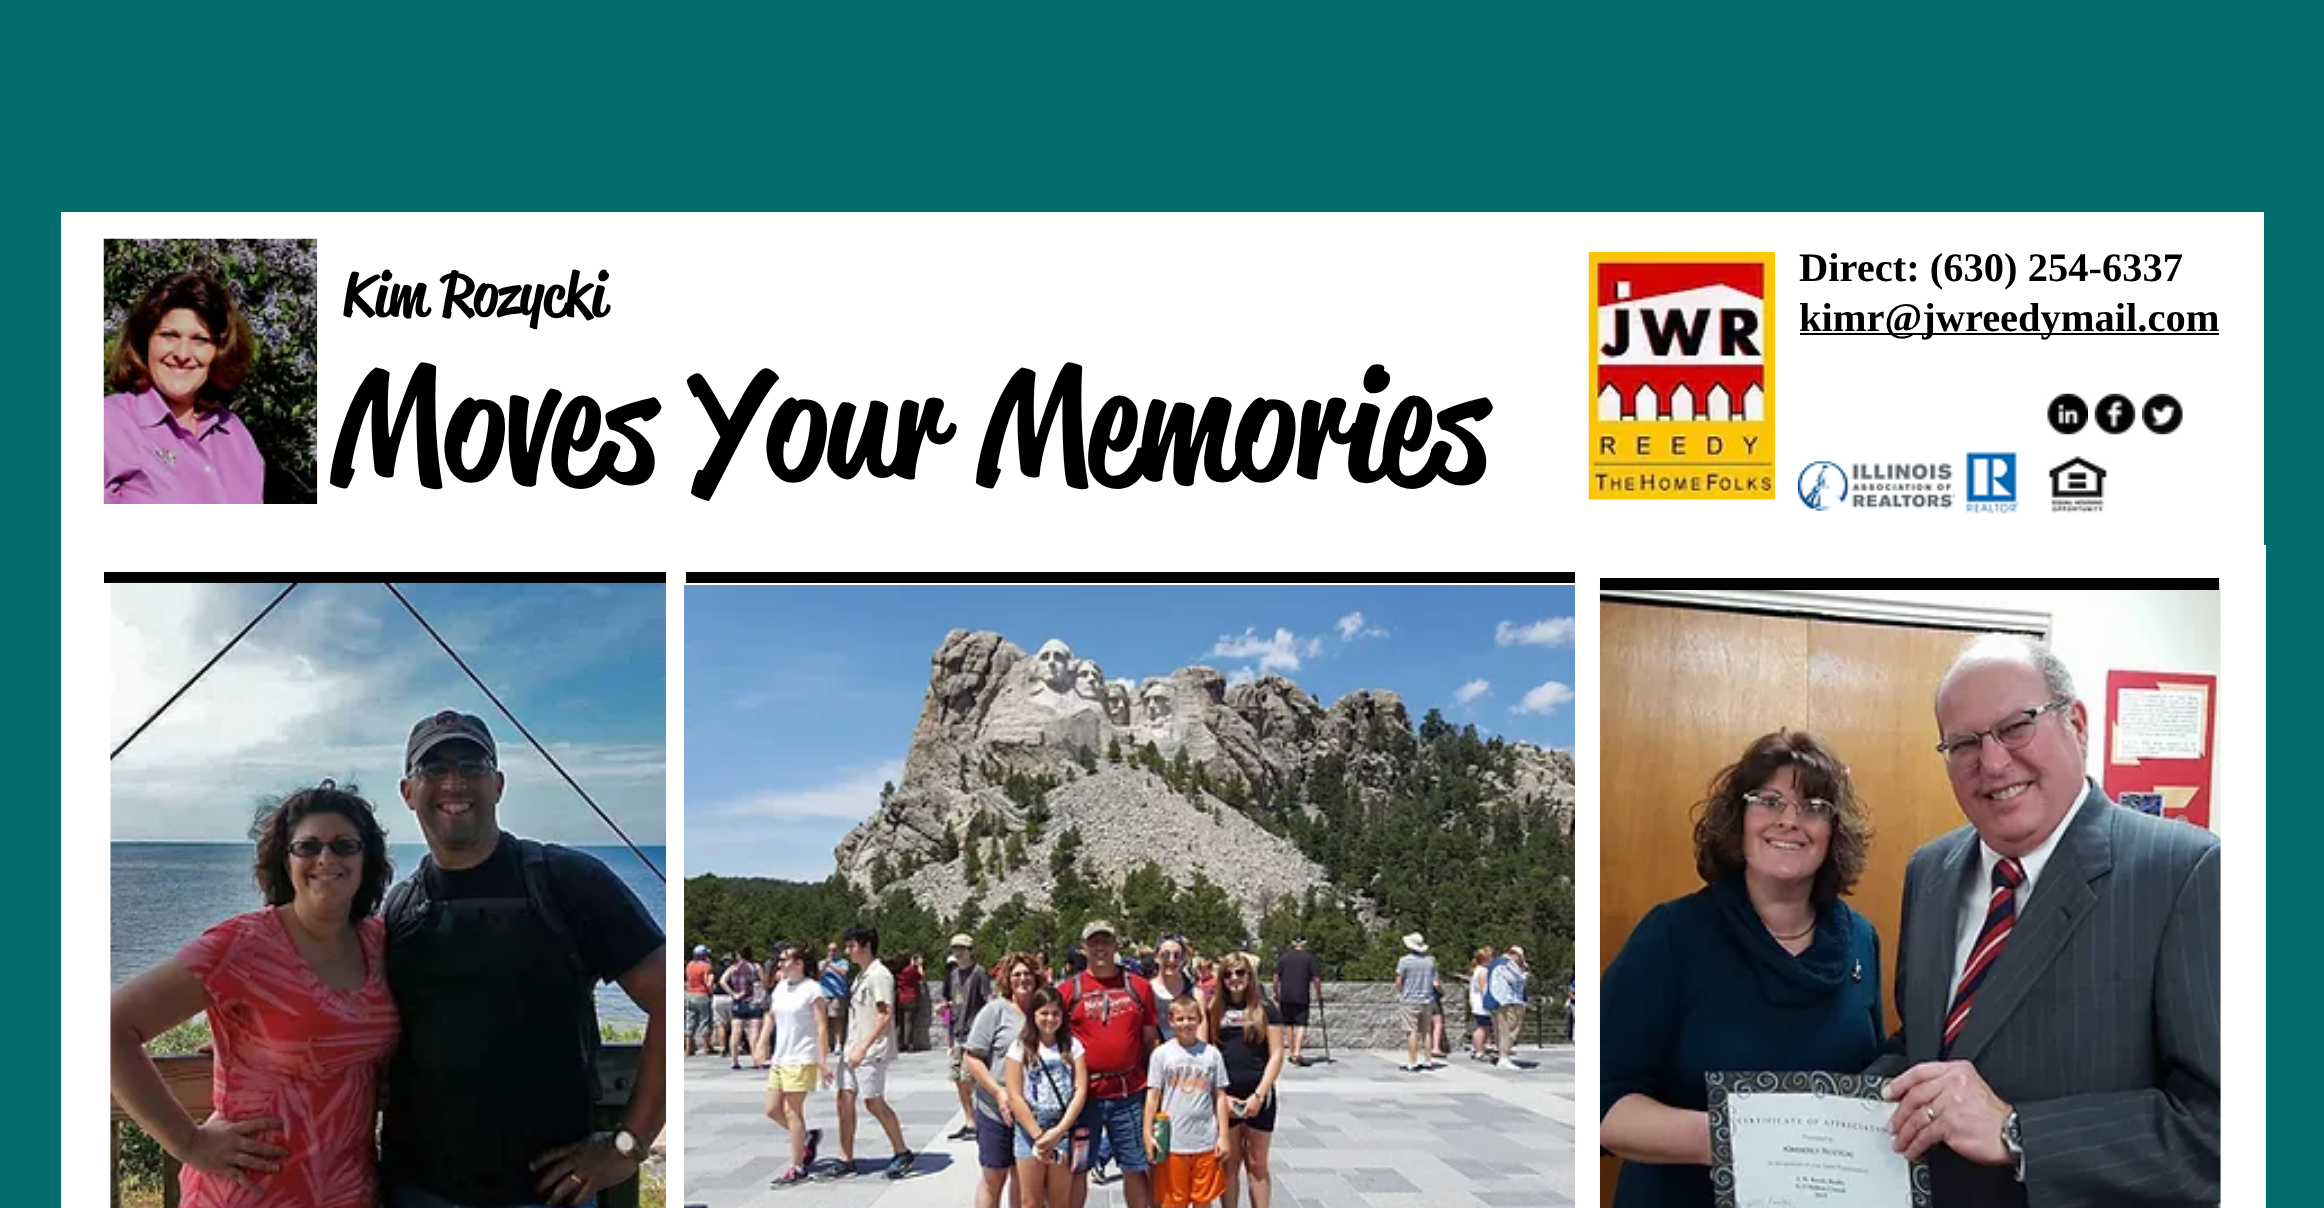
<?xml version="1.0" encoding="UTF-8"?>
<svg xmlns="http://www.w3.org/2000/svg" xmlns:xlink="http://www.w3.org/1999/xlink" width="2324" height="1208">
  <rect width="100%" height="100%" fill="#006c6d" />
  <rect x="61" y="212" width="2203" height="333" fill="#ffffff" />
  <image x="103" y="238" width="215" height="266" xlink:href="image1.png" />
  <image x="1588" y="252" width="188" height="248" xlink:href="image2.png" />
  <image x="2047" y="393" width="41" height="42" xlink:href="image3.png" />
  <image x="2094" y="393" width="42" height="42" xlink:href="image4.png" />
  <image x="2142" y="393" width="41" height="42" xlink:href="image5.png" />
  <image x="1797" y="461" width="159" height="50" xlink:href="image6.png" />
  <image x="1962" y="451" width="57" height="63" xlink:href="image7.png" />
  <image x="2047" y="456" width="61" height="58" xlink:href="image8.png" />
  <rect x="1800" y="333" width="419" height="2" fill="#000000" />
  <rect x="61" y="545" width="2205" height="663" fill="#ffffff" />
  <rect x="104" y="572" width="562" height="11" fill="#000000" />
  <rect x="686" y="572" width="889" height="11" fill="#000000" />
  <image x="1599" y="582" width="622" height="626" xlink:href="image11.png" />
  <rect x="1600" y="578" width="619" height="12" fill="#000000" />
  <image x="110" y="582" width="556" height="626" xlink:href="image9.png" />
  <image x="684" y="585" width="891" height="623" xlink:href="image10.png" />
  <text x="343" y="315" style="font-family: 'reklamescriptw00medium'; font-size: 60.75px; font-weight: 500; fill: #000000">Kim Rozycki</text>
  <text x="1799" y="281" style="font-family: Liberation Serif; font-size: 40.5px; font-weight: bold; fill: #000000">Direct: (630) 254-6337</text>
  <text x="332" y="477" style="font-family: 'reklamescriptw00medium'; font-size: 150.75px; font-weight: 500; fill: #000000">Moves Your Memories</text>
  <text x="1799" y="331" style="font-family: Liberation Serif; font-size: 40.5px; font-weight: bold; fill: #000000">kimr@jwreedymail.com</text>
</svg>
